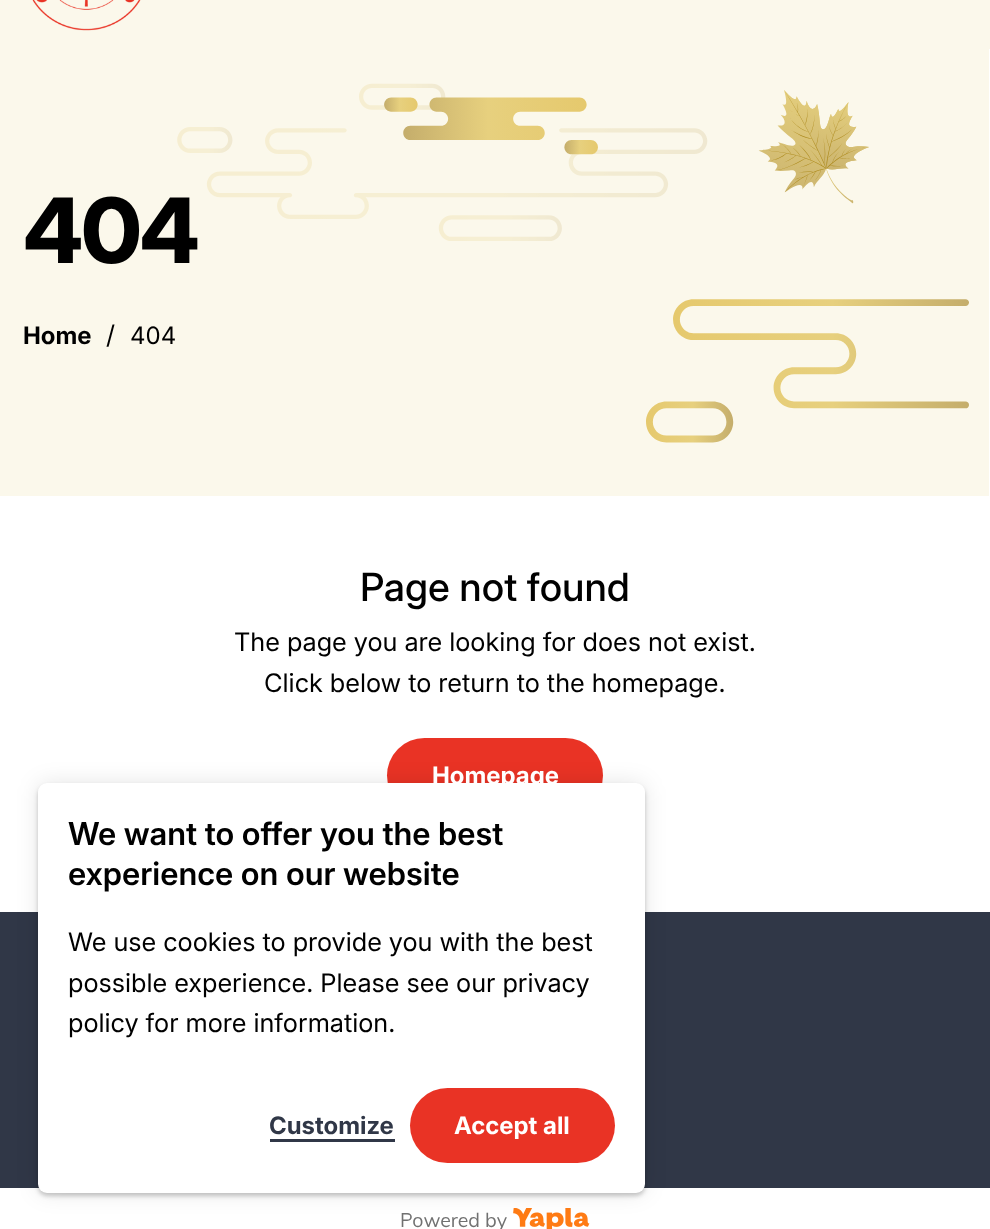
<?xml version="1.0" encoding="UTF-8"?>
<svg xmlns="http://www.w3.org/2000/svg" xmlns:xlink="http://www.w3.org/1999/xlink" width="990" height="1229">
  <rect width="100%" height="100%" fill="#ffffff" />
  <rect width="990" height="49" fill="#fbf8eb" />
  <image x="32" y="0" width="109" height="31" xlink:href="image1.png" />
  <image x="0" y="49" width="989" height="447" xlink:href="image2.png" />
  <rect x="387" y="738" width="216" height="75" rx="37.5" fill="#e93325" />
  <rect y="912" width="990" height="276" fill="#303747" />
  <image x="513" y="1208" width="77" height="21" xlink:href="image3.png" />
  <rect x="38" y="783" width="607" height="410" rx="9" fill="#000000" fill-opacity="0.1" filter="blur(11px)" />
  <rect x="38" y="786" width="607" height="410" rx="9" fill="#000000" fill-opacity="0.2" filter="blur(2px)" />
  <rect x="38" y="783" width="607" height="410" rx="9" fill="#ffffff" />
  <rect x="270" y="1139" width="125" height="3" fill="#303747" />
  <rect x="410" y="1088" width="205" height="75" rx="37.5" fill="#e93325" />
  <text x="23" y="263" style="font-family: Inter; font-size: 90px; font-weight: 800; letter-spacing: -2px; fill: #000000">404</text>
  <text x="23" y="344" style="font-family: Inter; font-size: 24px; font-weight: bold; fill: #000000">Home</text>
  <text x="106" y="344" style="font-family: Inter; font-size: 25.5px; fill: #000000">/</text>
  <text x="130" y="344" style="font-family: 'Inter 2'; font-size: 24px; fill: #000000">404</text>
  <text x="360" y="601" style="font-family: Inter; font-size: 39px; font-weight: 500; fill: #000000">Page not found</text>
  <text x="234" y="651" style="font-family: Inter; font-size: 25.5px; fill: #000000">The page you are looking for does not exist.</text>
  <text x="264" y="692" style="font-family: Inter; font-size: 25.5px; fill: #000000">Click below to return to the homepage.</text>
  <text x="432" y="784" style="font-family: Inter; font-size: 24px; font-weight: bold; fill: #ffffff">Homepage</text>
  <text x="400" y="1227" style="font-family: Muli; font-size: 19.5px; fill: #717171">Powered by</text>
  <text x="68" y="845" style="font-family: Inter; font-size: 31.5px; font-weight: 600; fill: #000000">We want to offer you the best</text>
  <text x="68" y="885" style="font-family: Inter; font-size: 31.5px; font-weight: 600; fill: #000000">experience on our website</text>
  <text x="68" y="951" style="font-family: Inter; font-size: 25.5px; fill: #000000">We use cookies to provide you with the best</text>
  <text x="68" y="992" style="font-family: Inter; font-size: 25.5px; fill: #000000">possible experience. Please see our privacy</text>
  <text x="68" y="1032" style="font-family: Inter; font-size: 25.5px; fill: #000000">policy for more information.</text>
  <text x="269" y="1134" style="font-family: Inter; font-size: 24px; font-weight: bold; fill: #303747">Customize</text>
  <text x="454" y="1134" style="font-family: Inter; font-size: 24px; font-weight: bold; fill: #ffffff">Accept all</text>
</svg>
